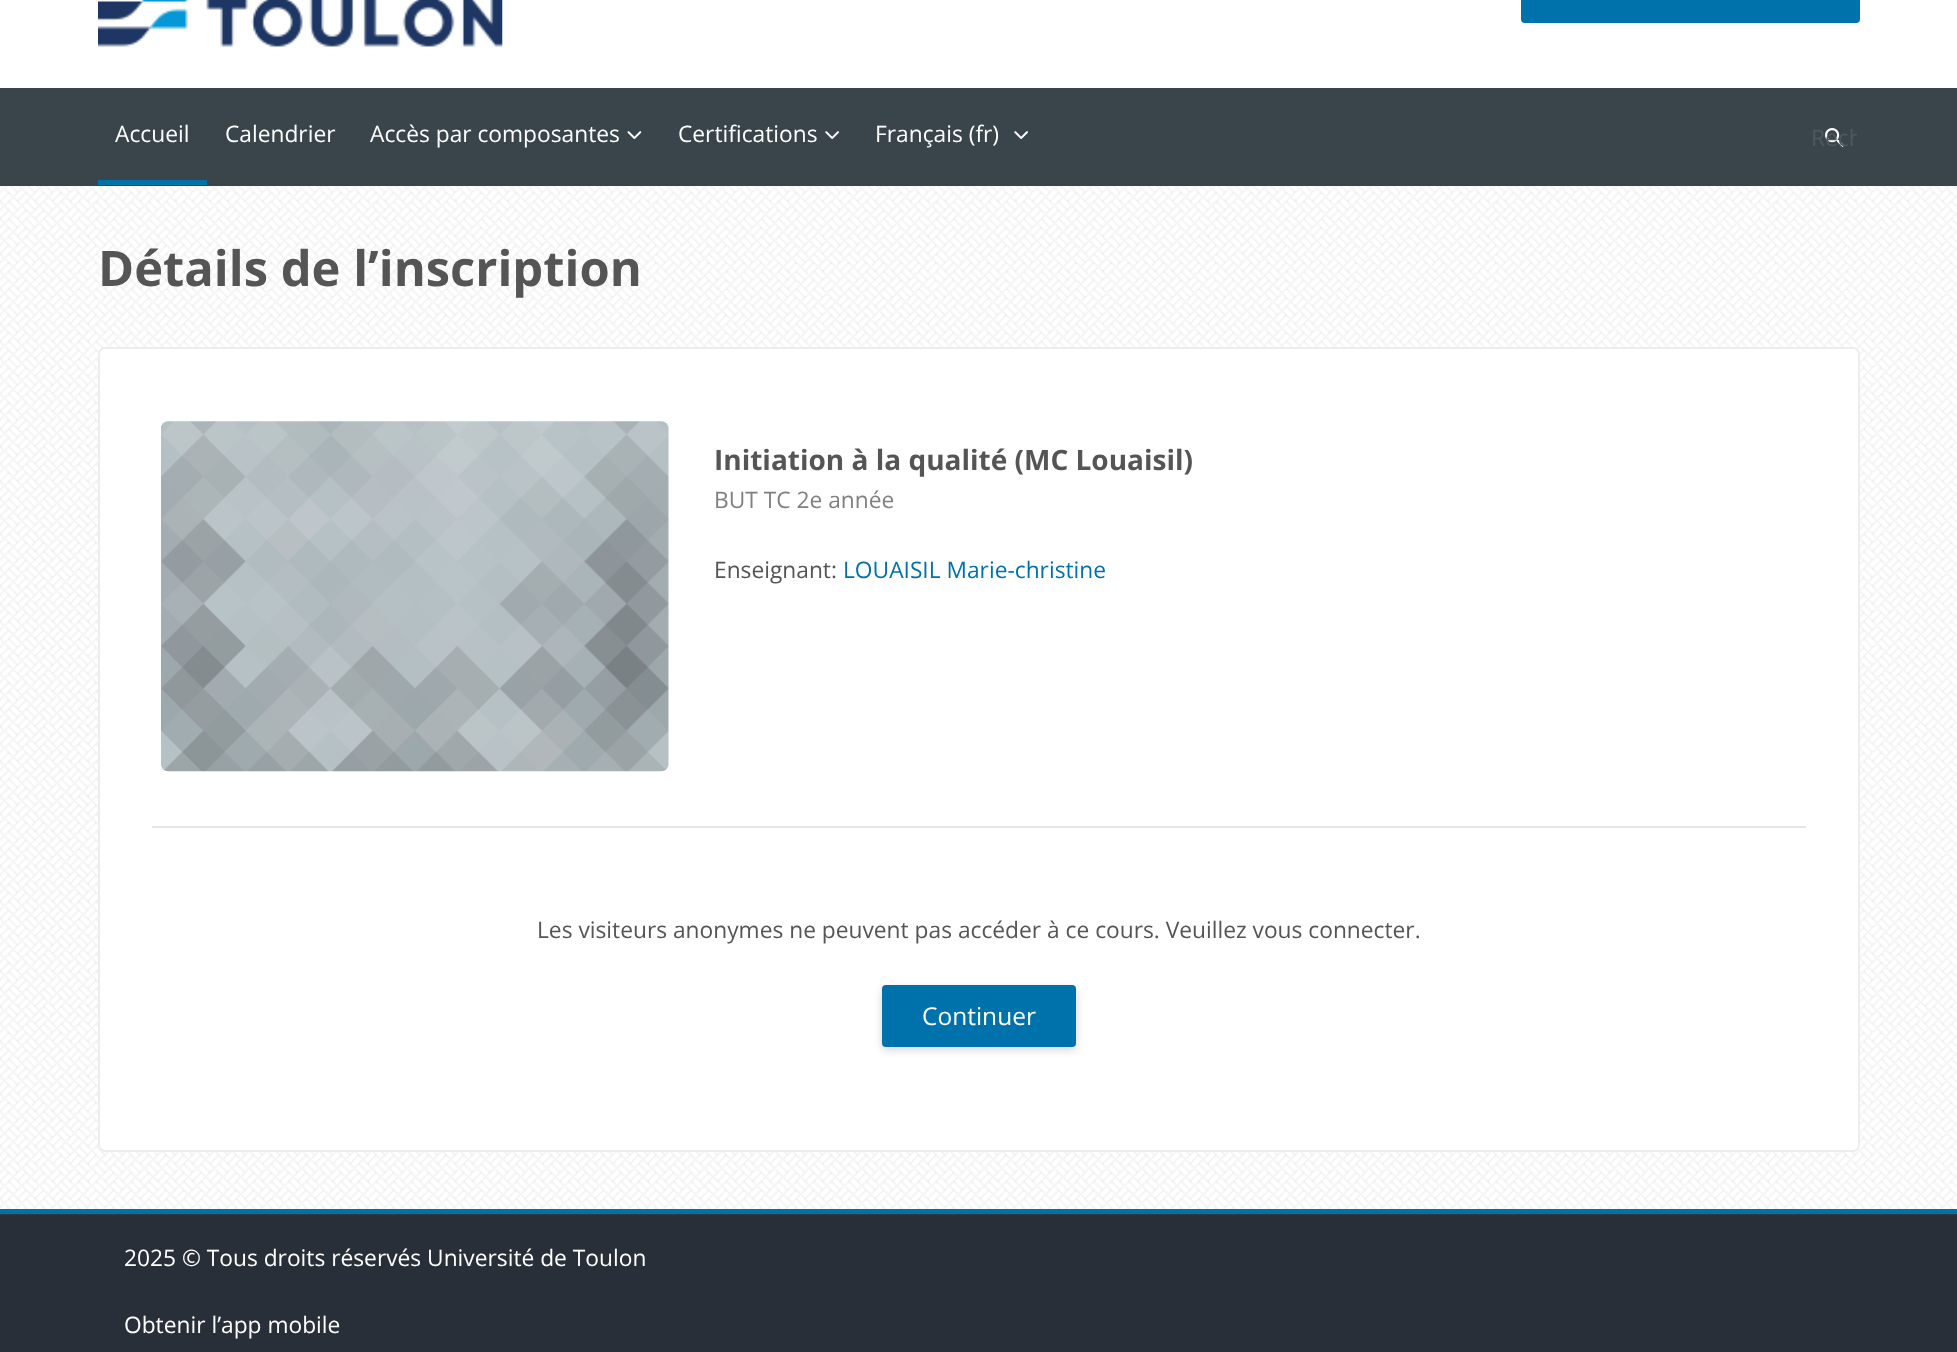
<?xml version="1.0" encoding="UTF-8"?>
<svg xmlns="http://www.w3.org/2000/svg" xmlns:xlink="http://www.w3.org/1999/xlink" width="1957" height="1352">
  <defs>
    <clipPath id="clip1"><rect x="1811" y="121" width="46" height="31" /></clipPath>
  </defs>
  <rect width="100%" height="100%" fill="#ffffff" />
  <image x="0" y="186" width="1957" height="1023" xlink:href="image1.png" />
  <image x="98" y="0" width="405" height="47" xlink:href="image2.png" />
  <rect x="1521" y="-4" width="339" height="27" rx="4" fill="#0072ab" />
  <rect y="88" width="1957" height="98" fill="#3a454b" />
  <rect x="98" y="180" width="109" height="5" fill="#0072ab" />
  <image x="627" y="131" width="15" height="8" xlink:href="image3.png" />
  <image x="825" y="131" width="14" height="8" xlink:href="image4.png" />
  <image x="1014" y="131" width="14" height="8" xlink:href="image4.png" />
  <image x="1825" y="128" width="19" height="19" xlink:href="image5.png" />
  <rect x="98" y="347" width="1762" height="805" rx="7" fill="#ffffff" />
  <rect x="99" y="348" width="1760" height="803" rx="6" fill="none" stroke="#000000" stroke-opacity="0.07" stroke-width="2" />
  <rect x="152" y="826" width="1654" height="2" fill="#e5e5e5" />
  <image x="161" y="421" width="508" height="351" xlink:href="image6.png" />
  <rect x="882" y="989" width="194" height="61" rx="4" fill="#000000" fill-opacity="0.16" filter="blur(4.5px)" />
  <rect x="882" y="985" width="194" height="62" rx="4" fill="#0072ab" />
  <rect y="1214" width="1957" height="1" fill="#373a3c" />
  <rect y="1209" width="1957" height="5" fill="#0072ab" />
  <rect y="1215" width="1957" height="137" fill="#292f38" />
  <text x="115" y="142" style="font-family: Open Sans; font-size: 22.75px; fill: #ffffff">Accueil</text>
  <text x="225" y="142" style="font-family: Open Sans; font-size: 22.75px; fill: #ffffff">Calendrier</text>
  <text x="370" y="142" style="font-family: Open Sans; font-size: 22.75px; fill: #ffffff">Accès par composantes</text>
  <text x="678" y="142" style="font-family: Open Sans; font-size: 22.75px; fill: #ffffff">Certifications</text>
  <text x="875" y="142" style="font-family: Open Sans; font-size: 22.75px; fill: #ffffff">Français (fr)</text>
  <g clip-path="url(#clip1)">
    <text x="1811" y="146" style="font-family: Open Sans; font-size: 22.75px; fill: #4e585d">Rech</text>
  </g>
  <text x="98" y="286" style="font-family: Open Sans; font-size: 48.9px; font-weight: bold; fill: #555555">Détails de l’inscription</text>
  <text x="714" y="470" style="font-family: Open Sans; font-size: 28px; font-weight: bold; fill: #555555">Initiation à la qualité (MC Louaisil)</text>
  <text x="714" y="508" style="font-family: Open Sans; font-size: 22.75px; fill: #808080">BUT TC 2e année</text>
  <text x="714" y="578" style="font-family: Open Sans; font-size: 22.75px; fill: #555555">Enseignant:</text>
  <text x="843" y="578" style="font-family: Open Sans; font-size: 22.75px; fill: #0072ab">LOUAISIL Marie-christine</text>
  <text x="537" y="938" style="font-family: Open Sans; font-size: 22.75px; fill: #555555">Les visiteurs anonymes ne peuvent pas accéder à ce cours. Veuillez vous connecter.</text>
  <text x="922" y="1025" style="font-family: Open Sans; font-size: 24.5px; fill: #ffffff">Continuer</text>
  <text x="124" y="1266" style="font-family: Open Sans; font-size: 22.75px; fill: #ffffff">2025 © Tous droits réservés Université de Toulon</text>
  <text x="124" y="1333" style="font-family: Open Sans; font-size: 22.75px; fill: #ffffff">Obtenir l’app mobile</text>
</svg>
